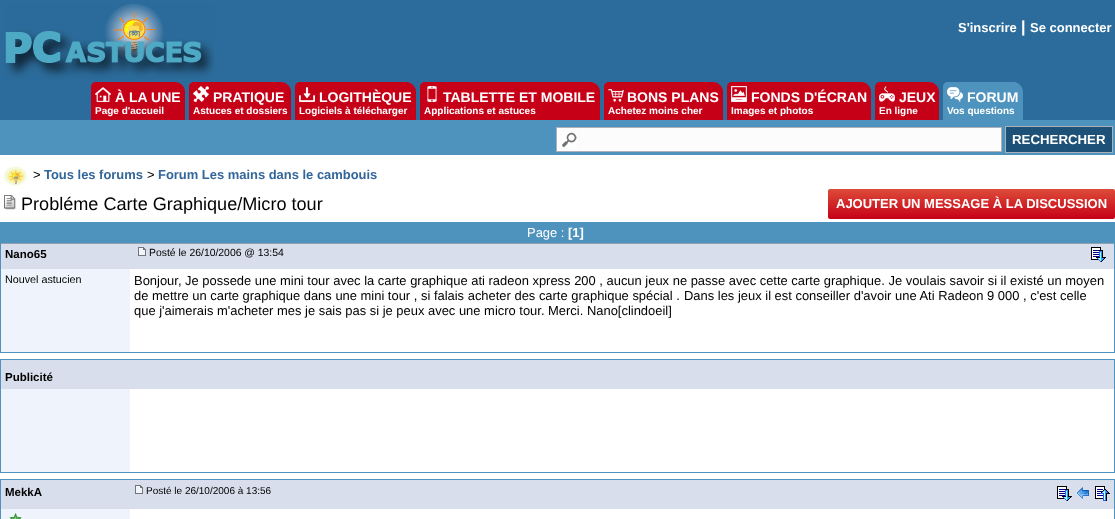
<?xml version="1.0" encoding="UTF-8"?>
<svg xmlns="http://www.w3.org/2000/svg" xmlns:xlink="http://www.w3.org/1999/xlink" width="1115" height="519">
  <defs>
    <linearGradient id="g1" gradientUnits="userSpaceOnUse" x1="972" y1="189" x2="972" y2="219"><stop offset="0" stop-color="#dd4b39" /><stop offset="1" stop-color="#c60017" /></linearGradient>
  </defs>
  <rect width="100%" height="100%" fill="#ffffff" />
  <rect width="1115" height="120" fill="#2c6c9d" />
  <image x="4" y="3" width="211" height="77" xlink:href="image1.png" />
  <path d="M 96 82 h 79 c 5.5 0 10 4.5 10 10 v 28 h -94 v -33 c 0 -3 2 -5 5 -5 z" fill="#c60017" />
  <image x="95" y="87" width="16" height="15" xlink:href="image2.png" />
  <path d="M 194 82 h 87 c 5.5 0 10 4.5 10 10 v 28 h -102 v -33 c 0 -3 2 -5 5 -5 z" fill="#c60017" />
  <image x="193" y="86" width="16" height="16" xlink:href="image3.png" />
  <path d="M 300 82 h 106 c 5.5 0 10 4.5 10 10 v 28 h -121 v -33 c 0 -3 2 -5 5 -5 z" fill="#c60017" />
  <image x="299" y="87" width="16" height="15" xlink:href="image4.png" />
  <path d="M 425 82 h 165 c 5.5 0 10 4.5 10 10 v 28 h -180 v -33 c 0 -3 2 -5 5 -5 z" fill="#c60017" />
  <image x="427" y="86" width="10" height="16" xlink:href="image5.png" />
  <path d="M 609 82 h 104 c 5.5 0 10 4.5 10 10 v 28 h -119 v -33 c 0 -3 2 -5 5 -5 z" fill="#c60017" />
  <image x="608" y="89" width="16" height="13" xlink:href="image6.png" />
  <path d="M 732 82 h 129 c 5.5 0 10 4.5 10 10 v 28 h -144 v -33 c 0 -3 2 -5 5 -5 z" fill="#c60017" />
  <image x="731" y="86" width="16" height="16" xlink:href="image7.png" />
  <path d="M 880 82 h 49 c 5.5 0 10 4.5 10 10 v 28 h -64 v -33 c 0 -3 2 -5 5 -5 z" fill="#c60017" />
  <image x="879" y="86" width="16" height="16" xlink:href="image8.png" />
  <path d="M 948 82 h 65 c 5.5 0 10 4.5 10 10 v 28 h -80 v -33 c 0 -3 2 -5 5 -5 z" fill="#4e93bd" />
  <image x="947" y="87" width="16" height="15" xlink:href="image9.png" />
  <rect y="120" width="1115" height="35" fill="#4e93bd" />
  <rect x="557" y="128" width="444" height="23" fill="#fcfcfc" />
  <image x="562" y="132" width="15" height="16" xlink:href="image10.png" />
  <rect x="556.5" y="127.5" width="445" height="24" fill="none" stroke="#acb1b7" />
  <rect x="1005.5" y="126.5" width="107" height="26" fill="#1e5178" stroke="#acb1b7" />
  <image x="4" y="166" width="23" height="20" xlink:href="image11.png" />
  <image x="4" y="195" width="12" height="15" xlink:href="image12.png" />
  <rect x="828" y="189" width="287" height="30" rx="2" fill="url(#g1)" />
  <rect y="222" width="1115" height="21" fill="#4e93bd" />
  <rect x="1" y="244" width="1113" height="25" fill="#d8deeb" />
  <rect y="243" width="1115" height="1" fill="#90a0b0" />
  <rect x="1114" y="243" width="1" height="110" fill="#4e93bd" />
  <rect y="243" width="1" height="26" fill="#4e93bd" />
  <image x="138" y="247" width="8" height="9" xlink:href="image13.png" />
  <image x="1091" y="247" width="15" height="15" xlink:href="image14.png" />
  <rect x="1" y="269" width="129" height="83" fill="#eff4fc" />
  <rect y="352" width="1115" height="1" fill="#4e93bd" />
  <rect y="269" width="1" height="84" fill="#4e93bd" />
  <rect x="1" y="360" width="1113" height="29" fill="#d8deeb" />
  <rect y="359" width="1115" height="1" fill="#4e93bd" />
  <rect x="1114" y="359" width="1" height="114" fill="#4e93bd" />
  <rect y="359" width="1" height="30" fill="#4e93bd" />
  <rect x="1" y="389" width="129" height="83" fill="#eff4fc" />
  <rect y="472" width="1115" height="1" fill="#4e93bd" />
  <rect y="389" width="1" height="84" fill="#4e93bd" />
  <rect x="1" y="480" width="1113" height="29" fill="#d8deeb" />
  <rect y="479" width="1115" height="1" fill="#4e93bd" />
  <rect x="1114" y="479" width="1" height="40" fill="#4e93bd" />
  <rect y="479" width="1" height="40" fill="#4e93bd" />
  <image x="135" y="485" width="8" height="9" xlink:href="image13.png" />
  <image x="1057" y="486" width="15" height="15" xlink:href="image14.png" />
  <image x="1076" y="487" width="13" height="12" xlink:href="image15.png" />
  <image x="1095" y="486" width="15" height="15" xlink:href="image16.png" />
  <rect x="1" y="509" width="129" height="10" fill="#eff4fc" />
  <image x="9" y="513" width="13" height="6" xlink:href="image17.png" />
  <text x="958" y="32" style="font-family: Liberation Sans; font-size: 13px; font-weight: bold; fill: #ffffff">S'inscrire</text>
  <text x="1021" y="32" style="font-family: Liberation Sans; font-size: 16px; font-weight: bold; fill: #ffffff">|</text>
  <text x="1030" y="32" style="font-family: Liberation Sans; font-size: 13px; font-weight: bold; fill: #ffffff">Se connecter</text>
  <text x="115" y="102" style="font-family: Liberation Sans; font-size: 14px; font-weight: bold; fill: #ffffff">À LA UNE</text>
  <text x="95" y="114" style="font-family: Liberation Sans; font-size: 10px; font-weight: bold; fill: #ffffff">Page d'accueil</text>
  <text x="213" y="102" style="font-family: Liberation Sans; font-size: 14px; font-weight: bold; fill: #ffffff">PRATIQUE</text>
  <text x="193" y="114" style="font-family: Liberation Sans; font-size: 10px; font-weight: bold; fill: #ffffff">Astuces et dossiers</text>
  <text x="319" y="102" style="font-family: Liberation Sans; font-size: 14px; font-weight: bold; fill: #ffffff">LOGITHÈQUE</text>
  <text x="299" y="114" style="font-family: Liberation Sans; font-size: 10px; font-weight: bold; fill: #ffffff">Logiciels à télécharger</text>
  <text x="443" y="102" style="font-family: Liberation Sans; font-size: 14px; font-weight: bold; fill: #ffffff">TABLETTE ET MOBILE</text>
  <text x="424" y="114" style="font-family: Liberation Sans; font-size: 10px; font-weight: bold; fill: #ffffff">Applications et astuces</text>
  <text x="627" y="102" style="font-family: Liberation Sans; font-size: 14px; font-weight: bold; fill: #ffffff">BONS PLANS</text>
  <text x="608" y="114" style="font-family: Liberation Sans; font-size: 10px; font-weight: bold; fill: #ffffff">Achetez moins cher</text>
  <text x="751" y="102" style="font-family: Liberation Sans; font-size: 14px; font-weight: bold; fill: #ffffff">FONDS D'ÉCRAN</text>
  <text x="731" y="114" style="font-family: Liberation Sans; font-size: 10px; font-weight: bold; fill: #ffffff">Images et photos</text>
  <text x="899" y="102" style="font-family: Liberation Sans; font-size: 14px; font-weight: bold; fill: #ffffff">JEUX</text>
  <text x="879" y="114" style="font-family: Liberation Sans; font-size: 10px; font-weight: bold; fill: #ffffff">En ligne</text>
  <text x="967" y="102" style="font-family: Liberation Sans; font-size: 14px; font-weight: bold; fill: #ffffff">FORUM</text>
  <text x="947" y="114" style="font-family: Liberation Sans; font-size: 10px; font-weight: bold; fill: #ffffff">Vos questions</text>
  <text x="1012" y="144" style="font-family: Liberation Sans; font-size: 13.25px; font-weight: bold; fill: #ffffff">RECHERCHER</text>
  <text x="33" y="179" style="font-family: Liberation Sans; font-size: 12.95px; fill: #000000">&gt;</text>
  <text x="44" y="179" style="font-family: Liberation Sans; font-size: 12.95px; font-weight: bold; fill: #336699">Tous les forums</text>
  <text x="147" y="179" style="font-family: Liberation Sans; font-size: 12.95px; fill: #000000">&gt;</text>
  <text x="158" y="179" style="font-family: Liberation Sans; font-size: 12.95px; font-weight: bold; fill: #336699">Forum Les mains dans le cambouis</text>
  <text x="21" y="210" style="font-family: Liberation Sans; font-size: 18.1px; fill: #000000">Probléme Carte Graphique/Micro tour</text>
  <text x="836" y="208" style="font-family: Liberation Sans; font-size: 13px; font-weight: bold; fill: #ffffff">AJOUTER UN MESSAGE À LA DISCUSSION</text>
  <text x="527" y="237" style="font-family: Liberation Sans; font-size: 12.95px; fill: #ffffff">Page :</text>
  <text x="568" y="237" style="font-family: Liberation Sans; font-size: 12.95px; font-weight: bold; fill: #ffffff">[1]</text>
  <text x="5" y="258" style="font-family: Liberation Sans; font-size: 11.5px; font-weight: bold; fill: #000000">Nano65</text>
  <text x="149" y="256" style="font-family: Liberation Sans; font-size: 10.4px; fill: #000000">Posté le 26/10/2006 @ 13:54</text>
  <text x="5" y="283" style="font-family: Liberation Sans; font-size: 10.75px; fill: #000000">Nouvel astucien</text>
  <text x="134" y="285" style="font-family: Liberation Sans; font-size: 12.95px; fill: #000000">Bonjour, Je possede une mini tour avec la carte graphique ati radeon xpress 200 , aucun jeux ne passe avec cette carte graphique. Je voulais savoir si il existé un moyen</text>
  <text x="134" y="300" style="font-family: Liberation Sans; font-size: 12.95px; fill: #000000">de mettre un carte graphique dans une mini tour , si falais acheter des carte graphique spécial .</text>
  <text x="684" y="300" style="font-family: Liberation Sans; font-size: 12.95px; fill: #000000">Dans les jeux il est conseiller d'avoir une Ati Radeon 9 000 , c'est celle</text>
  <text x="134" y="315" style="font-family: Liberation Sans; font-size: 12.95px; fill: #000000">que j'aimerais m'acheter mes je sais pas si je peux avec une micro tour. Merci. Nano[clindoeil]</text>
  <text x="5" y="381" style="font-family: Liberation Sans; font-size: 11.5px; font-weight: bold; fill: #000000">Publicité</text>
  <text x="5" y="496" style="font-family: Liberation Sans; font-size: 11.5px; font-weight: bold; fill: #000000">MekkA</text>
  <text x="146" y="494" style="font-family: Liberation Sans; font-size: 10px; fill: #000000">Posté le 26/10/2006 à 13:56</text>
</svg>
